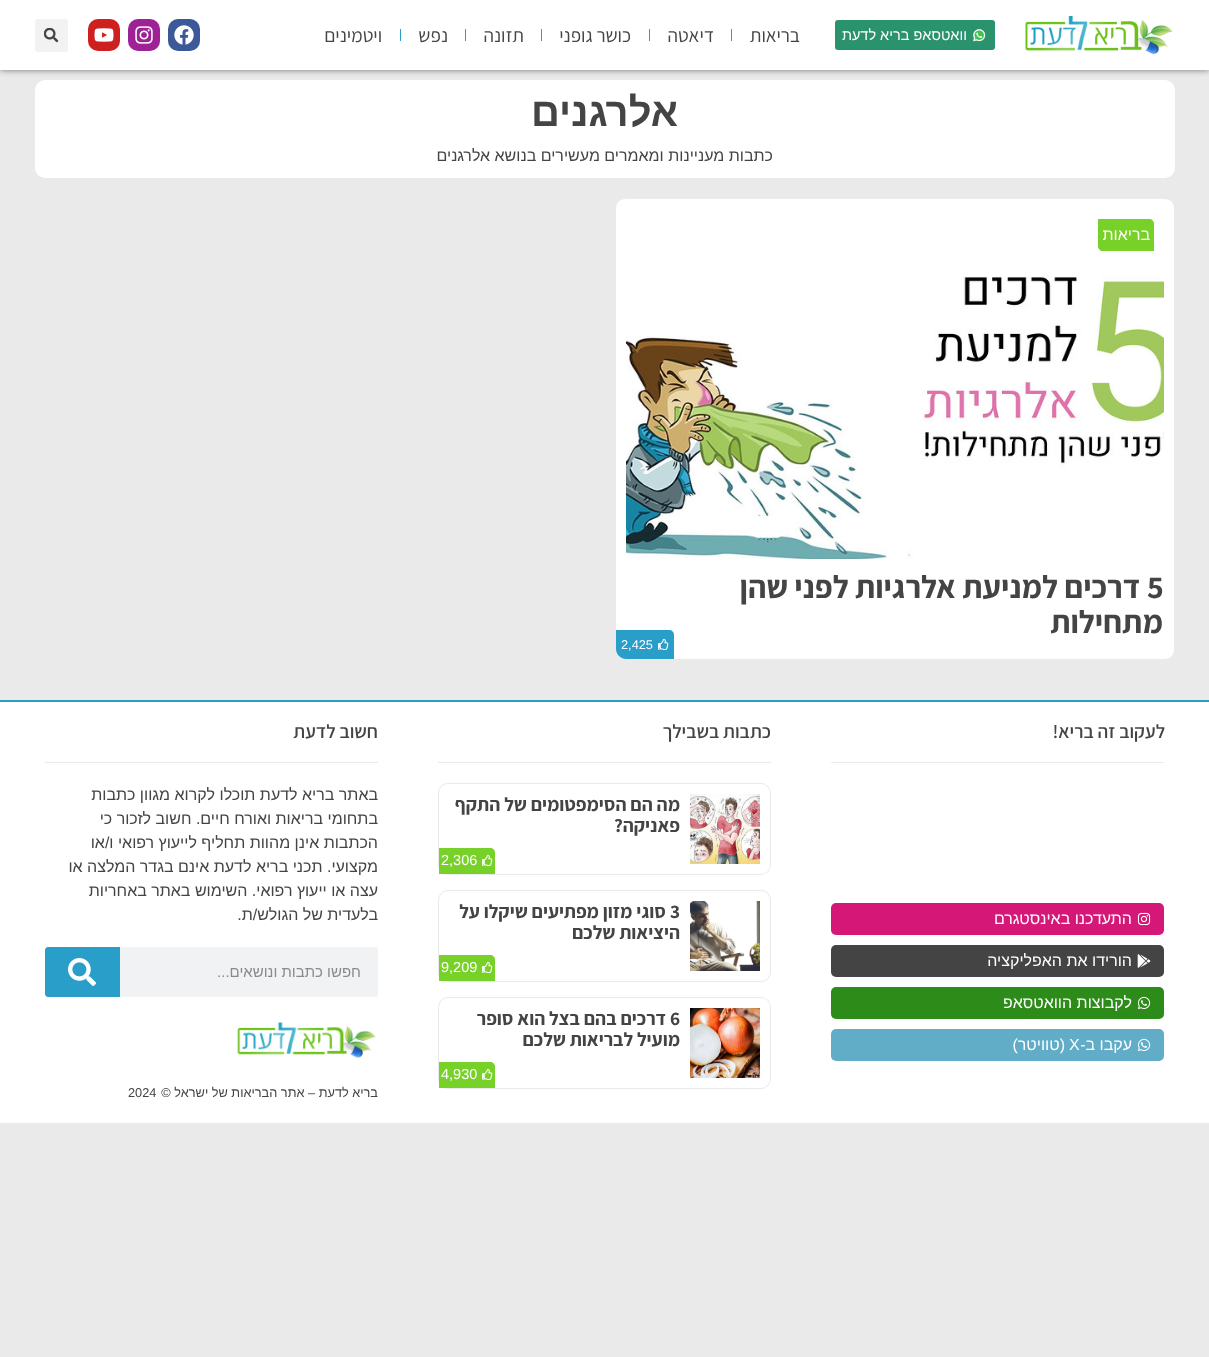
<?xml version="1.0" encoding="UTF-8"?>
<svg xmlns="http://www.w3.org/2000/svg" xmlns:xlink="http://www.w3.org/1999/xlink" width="1209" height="1357">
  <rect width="100%" height="100%" fill="#eaeaea" />
  <rect width="1209" height="70" fill="#000000" fill-opacity="0.5" filter="blur(3px)" />
  <rect width="1209" height="70" fill="#ffffff" />
  <image x="1025" y="16" width="148" height="39" xlink:href="image1.png" />
  <rect x="835" y="20" width="160" height="30" rx="3" fill="#2b926e" />
  <image x="973" y="29" width="13" height="13" xlink:href="image2.png" />
  <rect x="731" y="29" width="1" height="12" fill="#299ec9" />
  <rect x="649" y="29" width="1" height="12" fill="#299ec9" />
  <rect x="541" y="29" width="1" height="12" fill="#299ec9" />
  <rect x="465" y="29" width="1" height="12" fill="#299ec9" />
  <rect x="400" y="29" width="1" height="12" fill="#299ec9" />
  <rect x="168" y="19" width="32" height="32" rx="10" fill="#3b5998" />
  <image x="174" y="25" width="20" height="20" xlink:href="image3.png" />
  <rect x="128" y="19" width="32" height="32" rx="10" fill="#9e2295" />
  <image x="135" y="26" width="18" height="18" xlink:href="image4.png" />
  <rect x="88" y="19" width="32" height="32" rx="10" fill="#cd201f" />
  <image x="94" y="28" width="20" height="14" xlink:href="image5.png" />
  <rect x="35" y="19" width="33" height="33" rx="3" fill="#f2f2f2" />
  <image x="44" y="28" width="15" height="15" xlink:href="image6.png" />
  <rect x="35" y="80" width="1140" height="98" rx="10" fill="#ffffff" />
  <rect x="615.5" y="198.5" width="559" height="461" rx="9.5" fill="#ffffff" stroke="#eaeaea" />
  <path d="M 1098 219 h 51 c 3 0 5 2 5 5 v 27 h -51 c -3 0 -5 -2 -5 -5 z" fill="#78d129" />
  <image x="626" y="276" width="538" height="283" xlink:href="image7.png" />
  <path d="M 616 630 h 53 c 3 0 5 2 5 5 v 24 h -48 c -5.5 0 -10 -4.5 -10 -10 z" fill="#299ec9" />
  <image x="658" y="639" width="11" height="11" xlink:href="image8.png" />
  <rect y="702" width="1209" height="421" fill="#ffffff" />
  <rect y="700" width="1209" height="2" fill="#299ec9" />
  <rect x="831" y="762" width="333" height="1" fill="#eaeaea" />
  <rect x="831" y="903" width="333" height="32" rx="5" fill="#d51878" />
  <image x="1137" y="912" width="14" height="14" xlink:href="image9.png" />
  <rect x="831" y="945" width="333" height="32" rx="5" fill="#454444" />
  <image x="1137" y="954" width="14" height="14" xlink:href="image10.png" />
  <rect x="831" y="987" width="333" height="32" rx="5" fill="#2d8b1a" />
  <image x="1137" y="996" width="14" height="13" xlink:href="image11.png" />
  <rect x="831" y="1029" width="333" height="32" rx="5" fill="#61acc7" />
  <image x="1137" y="1038" width="14" height="13" xlink:href="image12.png" />
  <rect x="438" y="762" width="333" height="1" fill="#eaeaea" />
  <rect x="438.5" y="783.5" width="332" height="91" rx="9.5" fill="none" stroke="#eaeaea" />
  <image x="690" y="794" width="70" height="70" xlink:href="image13.png" />
  <path d="M 439 848 h 51 c 3 0 5 2 5 5 v 21 h -56 z" fill="#78d129" />
  <image x="482" y="855" width="11" height="11" xlink:href="image14.png" />
  <rect x="438.5" y="890.5" width="332" height="91" rx="9.5" fill="none" stroke="#eaeaea" />
  <image x="690" y="901" width="70" height="70" xlink:href="image15.png" />
  <path d="M 439 955 h 51 c 3 0 5 2 5 5 v 21 h -56 z" fill="#78d129" />
  <image x="482" y="962" width="11" height="11" xlink:href="image14.png" />
  <rect x="438.5" y="997.5" width="332" height="91" rx="9.5" fill="none" stroke="#eaeaea" />
  <image x="690" y="1008" width="70" height="70" xlink:href="image16.png" />
  <path d="M 439 1062 h 51 c 3 0 5 2 5 5 v 21 h -56 z" fill="#78d129" />
  <image x="482" y="1069" width="11" height="11" xlink:href="image14.png" />
  <rect x="45" y="762" width="333" height="1" fill="#eaeaea" />
  <rect x="45" y="947" width="333" height="50" rx="3" fill="#f1f2f3" />
  <path d="M 48 947 h 72 v 50 h -72 c -1.5 0 -3 -1.5 -3 -3 v -44 c 0 -1.5 1.5 -3 3 -3 z" fill="#299ec9" />
  <image x="68" y="958" width="28" height="28" xlink:href="image17.png" />
  <image x="237" y="1022" width="139" height="36" xlink:href="image18.png" />
  <text x="967" y="40" style="font-family: Liberation Sans; font-size: 14.5px; direction: rtl; fill: #ffffff">וואטסאפ בריא לדעת</text>
  <text x="800" y="42" style="font-family: Assistant; font-size: 19.25px; direction: rtl; fill: #454444">בריאות</text>
  <text x="714" y="42" style="font-family: Assistant; font-size: 19.25px; direction: rtl; fill: #454444">דיאטה</text>
  <text x="631" y="42" style="font-family: Assistant; font-size: 19.25px; direction: rtl; fill: #454444">כושר גופני</text>
  <text x="524" y="42" style="font-family: Assistant; font-size: 19.25px; direction: rtl; fill: #454444">תזונה</text>
  <text x="448" y="42" style="font-family: Assistant; font-size: 19.25px; direction: rtl; fill: #454444">נפש</text>
  <text x="382" y="42" style="font-family: Assistant; font-size: 19.25px; direction: rtl; fill: #454444">ויטמינים</text>
  <text x="678" y="126" style="font-family: Liberation Sans; font-size: 40px; font-weight: bold; direction: rtl; fill: #454444">אלרגנים</text>
  <text x="773" y="161" style="font-family: Liberation Sans; font-size: 16px; direction: rtl; fill: #454444">כתבות מעניינות ומאמרים מעשירים בנושא אלרגנים</text>
  <text x="1150" y="240" style="font-family: Liberation Sans; font-size: 16px; direction: rtl; fill: #ffffff">בריאות</text>
  <text x="1147" y="598" style="font-family: Assistant; font-size: 32px; font-weight: bold; fill: #454444">5</text>
  <text x="1140" y="598" style="font-family: Assistant; font-size: 32px; font-weight: bold; direction: rtl; fill: #454444">דרכים למניעת אלרגיות לפני שהן</text>
  <text x="1163" y="633" style="font-family: Assistant; font-size: 32px; font-weight: bold; direction: rtl; fill: #454444">מתחילות</text>
  <text x="621" y="649" style="font-family: Liberation Sans; font-size: 12.75px; fill: #ffffff">2,425</text>
  <text x="1165" y="738" style="font-family: Assistant; font-size: 19.25px; font-weight: 600; direction: rtl; fill: #454444">לעקוב זה בריא!</text>
  <text x="1132" y="924" style="font-family: Liberation Sans; font-size: 16px; direction: rtl; fill: #ffffff">התעדכנו באינסטגרם</text>
  <text x="1132" y="966" style="font-family: Liberation Sans; font-size: 16px; direction: rtl; fill: #ffffff">הורידו את האפליקציה</text>
  <text x="1132" y="1008" style="font-family: Liberation Sans; font-size: 16px; direction: rtl; fill: #ffffff">לקבוצות הוואטסאפ</text>
  <text x="1132" y="1050" style="font-family: Liberation Sans; font-size: 16px; direction: rtl; fill: #ffffff">עקבו ב-</text>
  <text x="1069" y="1050" style="font-family: Liberation Sans; font-size: 16px; fill: #ffffff">X</text>
  <text x="1065" y="1050" style="font-family: Liberation Sans; font-size: 16px; direction: rtl; fill: #ffffff">(טוויטר)</text>
  <text x="771" y="738" style="font-family: Assistant; font-size: 19.25px; font-weight: 600; direction: rtl; fill: #454444">כתבות בשבילך</text>
  <text x="680" y="811" style="font-family: Assistant; font-size: 19.25px; font-weight: bold; direction: rtl; fill: #454444">מה הם הסימפטומים של התקף</text>
  <text x="680" y="832" style="font-family: Assistant; font-size: 19.25px; font-weight: bold; direction: rtl; fill: #454444">פאניקה?</text>
  <text x="441" y="865" style="font-family: Liberation Sans; font-size: 14.5px; fill: #ffffff">2,306</text>
  <text x="670" y="918" style="font-family: Assistant; font-size: 19.25px; font-weight: bold; fill: #454444">3</text>
  <text x="666" y="918" style="font-family: Assistant; font-size: 19.25px; font-weight: bold; direction: rtl; fill: #454444">סוגי מזון מפתיעים שיקלו על</text>
  <text x="680" y="939" style="font-family: Assistant; font-size: 19.25px; font-weight: bold; direction: rtl; fill: #454444">היציאות שלכם</text>
  <text x="441" y="972" style="font-family: Liberation Sans; font-size: 14.5px; fill: #ffffff">9,209</text>
  <text x="670" y="1025" style="font-family: Assistant; font-size: 19.25px; font-weight: bold; fill: #454444">6</text>
  <text x="666" y="1025" style="font-family: Assistant; font-size: 19.25px; font-weight: bold; direction: rtl; fill: #454444">דרכים בהם בצל הוא סופר</text>
  <text x="680" y="1046" style="font-family: Assistant; font-size: 19.25px; font-weight: bold; direction: rtl; fill: #454444">מועיל לבריאות שלכם</text>
  <text x="441" y="1079" style="font-family: Liberation Sans; font-size: 14.5px; fill: #ffffff">4,930</text>
  <text x="378" y="738" style="font-family: Assistant; font-size: 19.25px; font-weight: 600; direction: rtl; fill: #454444">חשוב לדעת</text>
  <text x="378" y="800" style="font-family: Liberation Sans; font-size: 16px; direction: rtl; fill: #454444">באתר בריא לדעת תוכלו לקרוא מגוון כתבות</text>
  <text x="378" y="824" style="font-family: Liberation Sans; font-size: 16px; direction: rtl; fill: #454444">בתחומי בריאות ואורח חיים. חשוב לזכור כי</text>
  <text x="378" y="848" style="font-family: Liberation Sans; font-size: 16px; direction: rtl; fill: #454444">הכתבות אינן מהוות תחליף לייעוץ רפואי ו/או</text>
  <text x="378" y="872" style="font-family: Liberation Sans; font-size: 16px; direction: rtl; fill: #454444">מקצועי. תכני בריא לדעת אינם בגדר המלצה או</text>
  <text x="378" y="896" style="font-family: Liberation Sans; font-size: 16px; direction: rtl; fill: #454444">עצה או ייעוץ רפואי. השימוש באתר באחריות</text>
  <text x="378" y="920" style="font-family: Liberation Sans; font-size: 16px; direction: rtl; fill: #454444">בלעדית של הגולש/ת.</text>
  <text x="361" y="977" style="font-family: Liberation Sans; font-size: 15px; direction: rtl; fill: #8a8a8a">חפשו כתבות ונושאים...</text>
  <text x="378" y="1097" style="font-family: Liberation Sans; font-size: 12.75px; direction: rtl; fill: #454444">בריא לדעת – אתר הבריאות של ישראל ©</text>
  <text x="128" y="1097" style="font-family: Liberation Sans; font-size: 12.75px; fill: #454444">2024</text>
</svg>
